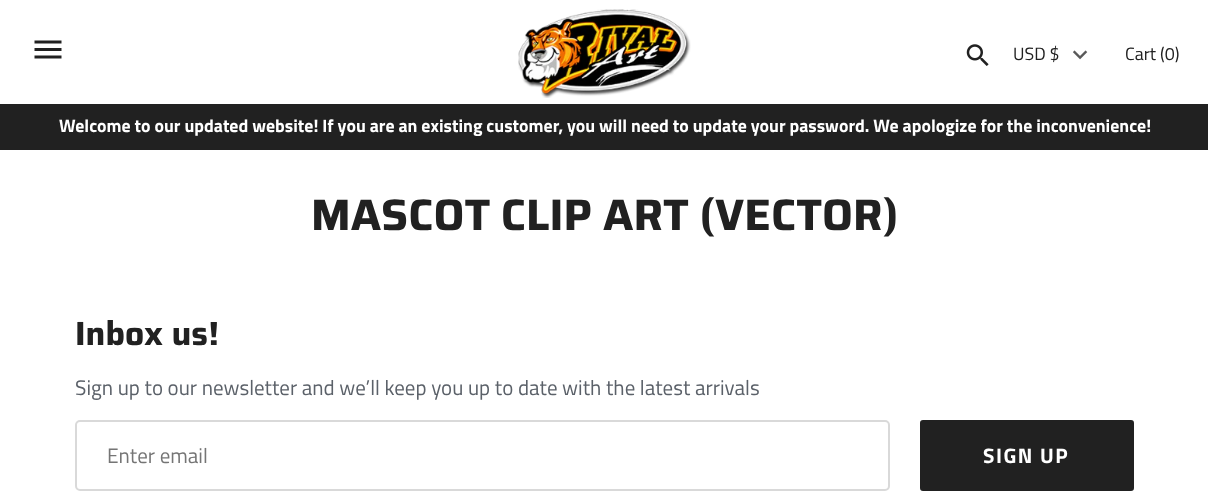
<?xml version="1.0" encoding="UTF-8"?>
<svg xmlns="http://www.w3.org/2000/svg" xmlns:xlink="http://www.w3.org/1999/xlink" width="1208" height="492">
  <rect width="100%" height="100%" fill="#ffffff" />
  <image x="34" y="40" width="28" height="19" xlink:href="image1.png" />
  <image x="518" y="9" width="173" height="89" xlink:href="image2.png" />
  <image x="966" y="44" width="23" height="22" xlink:href="image3.png" />
  <image x="1073" y="50" width="15" height="10" xlink:href="image4.png" />
  <rect y="104" width="1208" height="46" fill="#212121" />
  <rect x="76" y="421" width="813" height="69" rx="4" fill="none" stroke="#d9d9d9" stroke-width="2" />
  <rect x="921" y="421" width="212" height="69" rx="2" fill="#212121" stroke="#212121" stroke-width="2" />
  <text x="1013" y="60" style="font-family: Titillium Web; font-size: 17.85px; fill: #212121">USD $</text>
  <text x="1125" y="60" style="font-family: Titillium Web; font-size: 17.85px; fill: #212121">Cart (0)</text>
  <text x="59" y="132" style="font-family: Titillium Web; font-size: 17.85px; font-weight: bold; fill: #ffffff">Welcome to our updated website! If you are an existing customer, you will need to update your password. We apologize for the inconvenience!</text>
  <text x="311" y="230" style="font-family: Saira; font-size: 44.1px; font-weight: bold; fill: #212121">MASCOT CLIP ART (VECTOR)</text>
  <text x="75" y="345" style="font-family: Saira; font-size: 33.5px; font-weight: bold; fill: #212121">Inbox us!</text>
  <text x="75" y="395" style="font-family: Titillium Web; font-size: 21px; fill: #5b6169">Sign up to our newsletter and we’ll keep you up to date with the latest arrivals</text>
  <text x="107" y="463" style="font-family: Titillium Web; font-size: 21px; fill: #757575">Enter email</text>
  <text x="983" y="463" style="font-family: Titillium Web; font-size: 21px; font-weight: bold; letter-spacing: 1.5px; fill: #ffffff">SIGN UP</text>
</svg>
